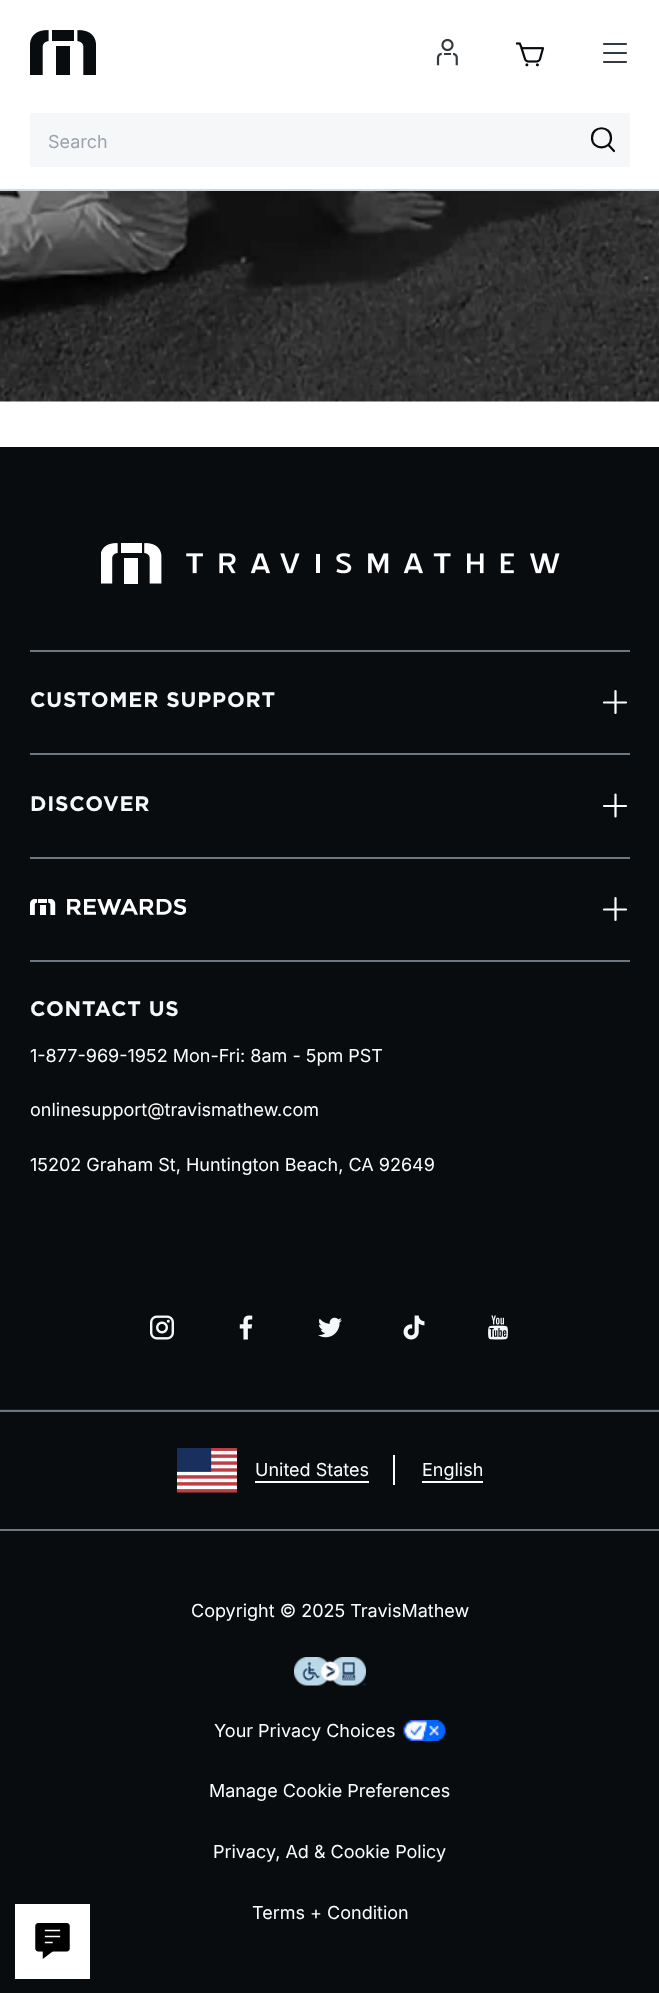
<?xml version="1.0" encoding="UTF-8"?>
<svg xmlns="http://www.w3.org/2000/svg" xmlns:xlink="http://www.w3.org/1999/xlink" width="659" height="1993">
  <rect width="100%" height="100%" fill="#ffffff" />
  <rect y="189" width="659" height="2" fill="#d1d9de" />
  <image x="30" y="30" width="66" height="45" xlink:href="image1.png" />
  <image x="436" y="38" width="22" height="28" xlink:href="image2.png" />
  <image x="516" y="42" width="29" height="25" xlink:href="image3.png" />
  <path d="M 604 62 h 22 m -22 -9 h 22 m -22 -9 h 22" fill="none" stroke="#333b42" stroke-width="2.2" stroke-linecap="round" />
  <rect x="30" y="113" width="600" height="54" fill="#f5f7f8" />
  <path d="M 614 151 l -5.5 -6 m -16.5 -7 c 0 -13 19 -13 19 0 c 0 12.5 -19 12.5 -19 0 z" fill="none" stroke="#090c0f" stroke-width="2.2" stroke-linecap="round" stroke-linejoin="round" />
  <image x="0" y="191" width="659" height="211" xlink:href="image4.png" />
  <rect y="447" width="659" height="962" fill="#090c0f" />
  <image x="101" y="543" width="459" height="41" xlink:href="image5.png" />
  <rect x="30" y="650" width="600" height="2" fill="#6c7782" />
  <path d="M 604 702.5 h 22 m -10.5 10.5 v -22" fill="none" stroke="#ffffff" stroke-width="2.2" stroke-linecap="round" />
  <rect x="30" y="753" width="600" height="2" fill="#6c7782" />
  <path d="M 604 806 h 22 m -10.5 10.5 v -22" fill="none" stroke="#ffffff" stroke-width="2.2" stroke-linecap="round" />
  <rect x="30" y="857" width="600" height="2" fill="#6c7782" />
  <image x="30" y="899" width="156" height="16" xlink:href="image6.png" />
  <path d="M 604 909.5 h 22 m -10.5 10.5 v -22" fill="none" stroke="#ffffff" stroke-width="2.2" stroke-linecap="round" />
  <rect x="30" y="960" width="600" height="2" fill="#6c7782" />
  <image x="150" y="1315" width="24" height="25" xlink:href="image7.png" />
  <image x="239" y="1315" width="14" height="25" xlink:href="image8.png" />
  <image x="318" y="1317" width="24" height="21" xlink:href="image9.png" />
  <image x="403" y="1315" width="22" height="25" xlink:href="image10.png" />
  <image x="488" y="1315" width="20" height="25" xlink:href="image11.png" />
  <rect y="1412" width="659" height="581" fill="#090c0f" />
  <rect y="1409" width="659" height="1" fill="#1a2026" />
  <rect y="1410" width="659" height="2" fill="#6c7782" />
  <rect y="1529" width="659" height="2" fill="#6c7782" />
  <image x="177" y="1448" width="60" height="45" xlink:href="image12.png" />
  <rect x="255" y="1481" width="114" height="2" fill="#ffffff" />
  <rect x="393" y="1455" width="2" height="30" fill="#ffffff" />
  <rect x="422" y="1481" width="61" height="2" fill="#ffffff" />
  <image x="294" y="1657" width="72" height="29" xlink:href="image13.png" />
  <image x="403" y="1720" width="43" height="21" xlink:href="image14.png" />
  <rect x="15" y="1904" width="75" height="75" fill="#ffffff" />
  <image x="35" y="1923" width="35" height="36" xlink:href="image15.png" />
  <text x="48" y="148" style="font-family: Inter; font-size: 18px; fill: #9ca3af">Search</text>
  <text x="30" y="707" style="font-family: Gotham; font-size: 21px; font-weight: bold; letter-spacing: 0.8px; fill: #f5f7f8">CUSTOMER SUPPORT</text>
  <text x="30" y="811" style="font-family: Gotham; font-size: 21px; font-weight: bold; letter-spacing: 0.8px; fill: #f5f7f8">DISCOVER</text>
  <text x="30" y="1016" style="font-family: Gotham; font-size: 21px; font-weight: bold; letter-spacing: 0.8px; fill: #f5f7f8">CONTACT US</text>
  <text x="30" y="1062" style="font-family: Inter; font-size: 18px; fill: #ffffff">1-877-969-1952 Mon-Fri: 8am - 5pm PST</text>
  <text x="30" y="1116" style="font-family: Inter; font-size: 18px; fill: #ffffff">onlinesupport@travismathew.com</text>
  <text x="30" y="1171" style="font-family: Inter; font-size: 18px; fill: #ffffff">15202 Graham St, Huntington Beach, CA 92649</text>
  <text x="255" y="1476" style="font-family: Inter; font-size: 18px; fill: #ffffff">United States</text>
  <text x="422" y="1476" style="font-family: Inter; font-size: 18px; fill: #ffffff">English</text>
  <text x="191" y="1617" style="font-family: Inter; font-size: 18px; fill: #ffffff">Copyright © 2025 TravisMathew</text>
  <text x="214" y="1737" style="font-family: Inter; font-size: 18px; fill: #ffffff">Your Privacy Choices</text>
  <text x="209" y="1797" style="font-family: Inter; font-size: 18px; fill: #ffffff">Manage Cookie Preferences</text>
  <text x="213" y="1858" style="font-family: Inter; font-size: 18px; fill: #ffffff">Privacy, Ad &amp; Cookie Policy</text>
  <text x="252" y="1919" style="font-family: Inter; font-size: 18px; fill: #ffffff">Terms + Condition</text>
</svg>
